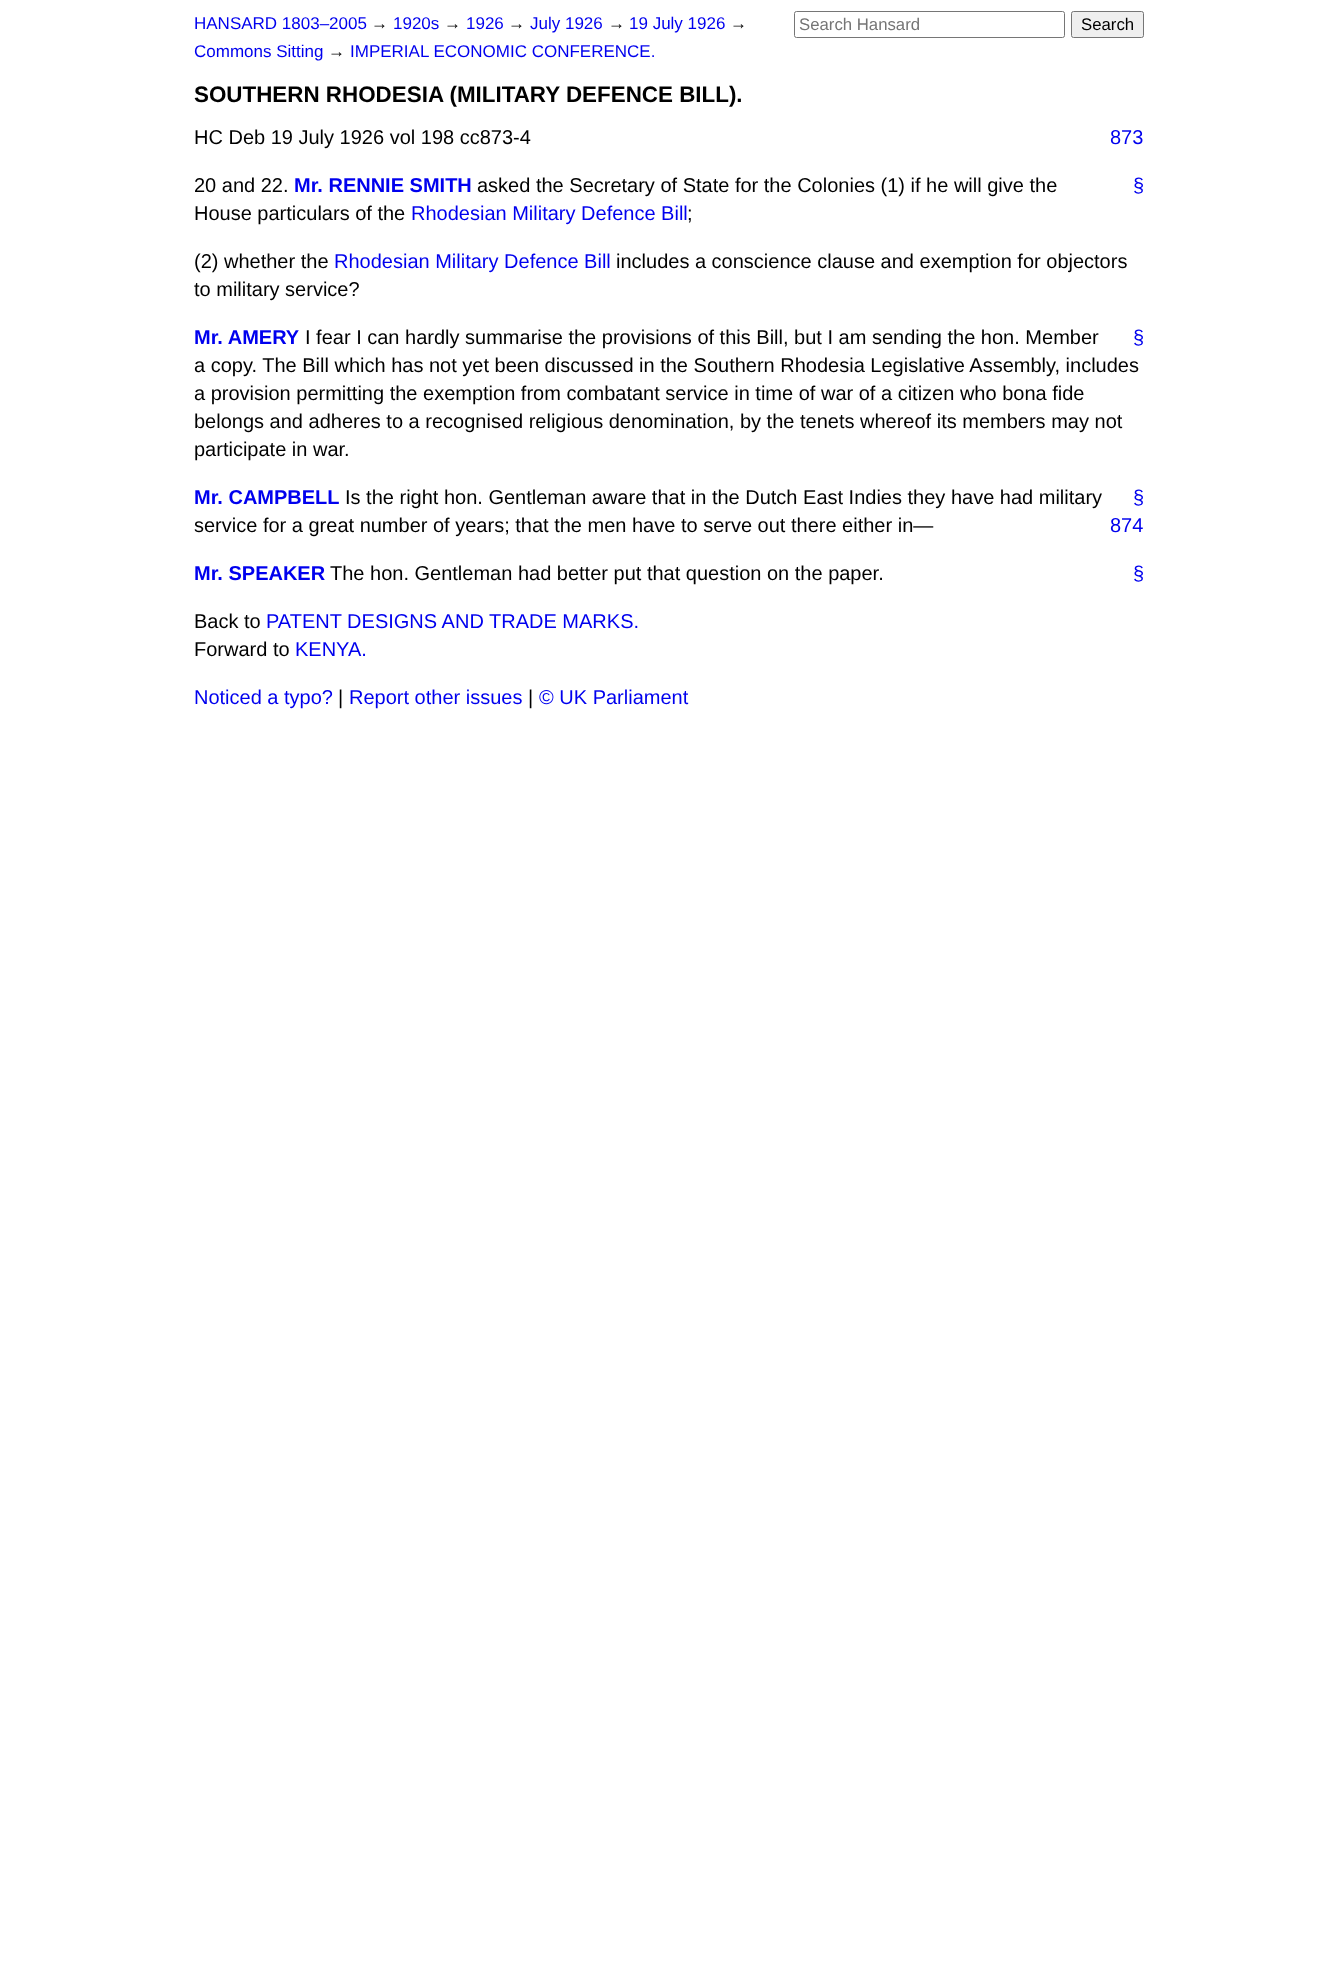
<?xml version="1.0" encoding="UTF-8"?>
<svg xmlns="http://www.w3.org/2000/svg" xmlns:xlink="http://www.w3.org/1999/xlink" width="1337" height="1975">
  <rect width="100%" height="100%" fill="#ffffff" />
  <rect x="794.5" y="11.5" width="270" height="26" rx="2" fill="none" stroke="#767676" />
  <rect x="1071.5" y="11.5" width="72" height="26" rx="2" fill="#efefef" stroke="#767676" />
  <text x="194" y="29" style="font-family: Liberation Sans; font-size: 17px; fill: #0000ee">HANSARD 1803–2005</text>
  <text x="371" y="29" style="font-family: Liberation Sans; font-size: 17px; fill: #000000">→</text>
  <text x="393" y="29" style="font-family: Liberation Sans; font-size: 17px; fill: #0000ee">1920s</text>
  <text x="444" y="29" style="font-family: Liberation Sans; font-size: 17px; fill: #000000">→</text>
  <text x="466" y="29" style="font-family: Liberation Sans; font-size: 17px; fill: #0000ee">1926</text>
  <text x="508" y="29" style="font-family: Liberation Sans; font-size: 17px; fill: #000000">→</text>
  <text x="530" y="29" style="font-family: Liberation Sans; font-size: 17px; fill: #0000ee">July 1926</text>
  <text x="608" y="29" style="font-family: Liberation Sans; font-size: 17px; fill: #000000">→</text>
  <text x="629" y="29" style="font-family: Liberation Sans; font-size: 17px; fill: #0000ee">19 July 1926</text>
  <text x="730" y="29" style="font-family: Liberation Sans; font-size: 17px; fill: #000000">→</text>
  <text x="194" y="57" style="font-family: Liberation Sans; font-size: 17px; fill: #0000ee">Commons Sitting</text>
  <text x="328" y="57" style="font-family: Liberation Sans; font-size: 17px; fill: #000000">→</text>
  <text x="350" y="57" style="font-family: Liberation Sans; font-size: 17px; fill: #0000ee">IMPERIAL ECONOMIC CONFERENCE.</text>
  <text x="799" y="30" style="font-family: Liberation Sans; font-size: 16.75px; fill: #757575">Search Hansard</text>
  <text x="1081" y="30" style="font-family: Liberation Sans; font-size: 16.75px; fill: #000000">Search</text>
  <text x="194" y="102" style="font-family: Liberation Sans; font-size: 22.4px; font-weight: bold; fill: #000000">SOUTHERN RHODESIA (MILITARY DEFENCE BILL).</text>
  <text x="194" y="144" style="font-family: Liberation Sans; font-size: 20px; fill: #000000">HC Deb 19 July 1926 vol 198 cc873-4</text>
  <text x="1110" y="144" style="font-family: Liberation Sans; font-size: 20px; fill: #0000ee">873</text>
  <text x="194" y="192" style="font-family: Liberation Sans; font-size: 20px; fill: #000000">20 and 22.</text>
  <text x="294" y="192" style="font-family: Liberation Sans; font-size: 20px; font-weight: bold; fill: #0000ee">Mr. RENNIE SMITH</text>
  <text x="477" y="192" style="font-family: Liberation Sans; font-size: 20px; fill: #000000">asked the Secretary of State for the Colonies (1) if he will give the</text>
  <text x="1133" y="192" style="font-family: Liberation Sans; font-size: 20px; fill: #0000ee">§</text>
  <text x="194" y="220" style="font-family: Liberation Sans; font-size: 20px; fill: #000000">House particulars of the</text>
  <text x="411" y="220" style="font-family: Liberation Sans; font-size: 20px; fill: #0000ee">Rhodesian Military Defence Bill</text>
  <text x="687" y="220" style="font-family: Liberation Sans; font-size: 20px; fill: #000000">;</text>
  <text x="194" y="268" style="font-family: Liberation Sans; font-size: 20px; fill: #000000">(2) whether the</text>
  <text x="334" y="268" style="font-family: Liberation Sans; font-size: 20px; fill: #0000ee">Rhodesian Military Defence Bill</text>
  <text x="616" y="268" style="font-family: Liberation Sans; font-size: 20px; fill: #000000">includes a conscience clause and exemption for objectors</text>
  <text x="194" y="296" style="font-family: Liberation Sans; font-size: 20px; fill: #000000">to military service?</text>
  <text x="194" y="344" style="font-family: Liberation Sans; font-size: 20px; font-weight: bold; fill: #0000ee">Mr. AMERY</text>
  <text x="305" y="344" style="font-family: Liberation Sans; font-size: 20px; fill: #000000">I fear I can hardly summarise the provisions of this Bill, but I am sending the hon. Member</text>
  <text x="1133" y="344" style="font-family: Liberation Sans; font-size: 20px; fill: #0000ee">§</text>
  <text x="194" y="372" style="font-family: Liberation Sans; font-size: 20px; fill: #000000">a copy. The Bill which has not yet been discussed in the Southern Rhodesia Legislative Assembly, includes</text>
  <text x="194" y="400" style="font-family: Liberation Sans; font-size: 20px; fill: #000000">a provision permitting the exemption from combatant service in time of war of a citizen who bona fide</text>
  <text x="194" y="428" style="font-family: Liberation Sans; font-size: 20px; fill: #000000">belongs and adheres to a recognised religious denomination, by the tenets whereof its members may not</text>
  <text x="194" y="456" style="font-family: Liberation Sans; font-size: 20px; fill: #000000">participate in war.</text>
  <text x="345" y="504" style="font-family: Liberation Sans; font-size: 20px; fill: #000000">Is the right hon. Gentleman aware that in the Dutch East Indies they have had military</text>
  <text x="194" y="532" style="font-family: Liberation Sans; font-size: 20px; fill: #000000">service for a great number of years; that the men have to serve out there either in—</text>
  <text x="1110" y="532" style="font-family: Liberation Sans; font-size: 20px; fill: #0000ee">874</text>
  <text x="194" y="504" style="font-family: Liberation Sans; font-size: 20px; font-weight: bold; fill: #0000ee">Mr. CAMPBELL</text>
  <text x="1133" y="504" style="font-family: Liberation Sans; font-size: 20px; fill: #0000ee">§</text>
  <text x="194" y="580" style="font-family: Liberation Sans; font-size: 20px; font-weight: bold; fill: #0000ee">Mr. SPEAKER</text>
  <text x="330" y="580" style="font-family: Liberation Sans; font-size: 20px; fill: #000000">The hon. Gentleman had better put that question on the paper.</text>
  <text x="1133" y="580" style="font-family: Liberation Sans; font-size: 20px; fill: #0000ee">§</text>
  <text x="194" y="628" style="font-family: Liberation Sans; font-size: 20px; fill: #000000">Back to</text>
  <text x="266" y="628" style="font-family: Liberation Sans; font-size: 20px; fill: #0000ee">PATENT DESIGNS AND TRADE MARKS.</text>
  <text x="194" y="656" style="font-family: Liberation Sans; font-size: 20px; fill: #000000">Forward to</text>
  <text x="295" y="656" style="font-family: Liberation Sans; font-size: 20px; fill: #0000ee">KENYA.</text>
  <text x="194" y="704" style="font-family: Liberation Sans; font-size: 20px; fill: #0000ee">Noticed a typo?</text>
  <text x="338" y="704" style="font-family: Liberation Sans; font-size: 20px; fill: #000000">|</text>
  <text x="349" y="704" style="font-family: Liberation Sans; font-size: 20px; fill: #0000ee">Report other issues</text>
  <text x="528" y="704" style="font-family: Liberation Sans; font-size: 20px; fill: #000000">|</text>
  <text x="539" y="704" style="font-family: Liberation Sans; font-size: 20px; fill: #0000ee">© UK Parliament</text>
</svg>
